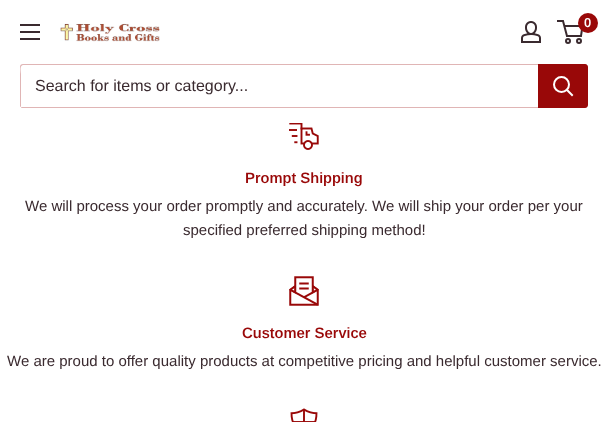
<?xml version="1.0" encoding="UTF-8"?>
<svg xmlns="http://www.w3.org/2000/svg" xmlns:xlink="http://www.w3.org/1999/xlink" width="608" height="422">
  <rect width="100%" height="100%" fill="#ffffff" />
  <image x="20" y="24" width="20" height="16" xlink:href="image1.png" />
  <image x="60" y="23" width="100" height="19" xlink:href="image2.png" />
  <image x="521" y="21" width="20" height="22" xlink:href="image3.png" />
  <circle cx="568" cy="41" r="2" fill="none" stroke="#3a2a2f" stroke-width="2" />
  <circle cx="579" cy="41" r="2" fill="none" stroke="#3a2a2f" stroke-width="2" />
  <path d="M 564.5 26 h 18 l -1.5 10 h -14 l -4 -15 h -6" fill="none" stroke="#3a2a2f" stroke-width="2" />
  <circle cx="588" cy="23" r="10" fill="#990808" />
  <path d="M 21 107 c 0 1 1 1 2 1 h 562 c 2 0 3 -1 3 -3 v -38 c 0 -1 0 -2 -1 -2 v 33 c 0 2 2 9 -3 9 z" fill="#e0b5b5" />
  <path d="M 24 65 h 563 c 0 -1 -1 -1 -2 -1 h -562 c -2 0 -3 1 -3 3 v 38 c 0 1 0 2 1 2 v -33 c 0 -2 -2 -9 3 -9 z" fill="#e0b5b5" />
  <path d="M 538 64 h 47 c 1.5 0 3 1.5 3 3 v 38 c 0 1.5 -1.5 3 -3 3 h -47 z" fill="#990808" />
  <path d="M 572 95 l -5 -5" fill="none" stroke="#ffffff" stroke-width="2" stroke-linecap="square" />
  <circle cx="561.5" cy="84.5" r="7.5" fill="none" stroke="#ffffff" stroke-width="2" />
  <image x="289" y="123" width="30" height="27" xlink:href="image4.png" />
  <image x="289" y="276" width="30" height="30" xlink:href="image5.png" />
  <image x="290" y="408" width="28" height="14" xlink:href="image6.png" />
  <text x="584" y="27" style="font-family: Arimo; font-size: 13px; font-weight: 600; fill: #ffffff">0</text>
  <text x="35" y="91" style="font-family: Arimo; font-size: 16px; fill: #3a2a2f">Search for items or category...</text>
  <text x="245" y="183" style="font-family: Arimo; font-size: 15px; font-weight: 600; fill: #990808">Prompt Shipping</text>
  <text x="25" y="211" style="font-family: Arimo; font-size: 15px; fill: #3a2a2f">We will process your order promptly and accurately. We will ship your order per your</text>
  <text x="183" y="235" style="font-family: Arimo; font-size: 15px; fill: #3a2a2f">specified preferred shipping method!</text>
  <text x="242" y="338" style="font-family: Arimo; font-size: 15px; font-weight: 600; fill: #990808">Customer Service</text>
  <text x="7" y="366" style="font-family: Arimo; font-size: 15px; fill: #3a2a2f">We are proud to offer quality products at competitive pricing and helpful customer service.</text>
</svg>
